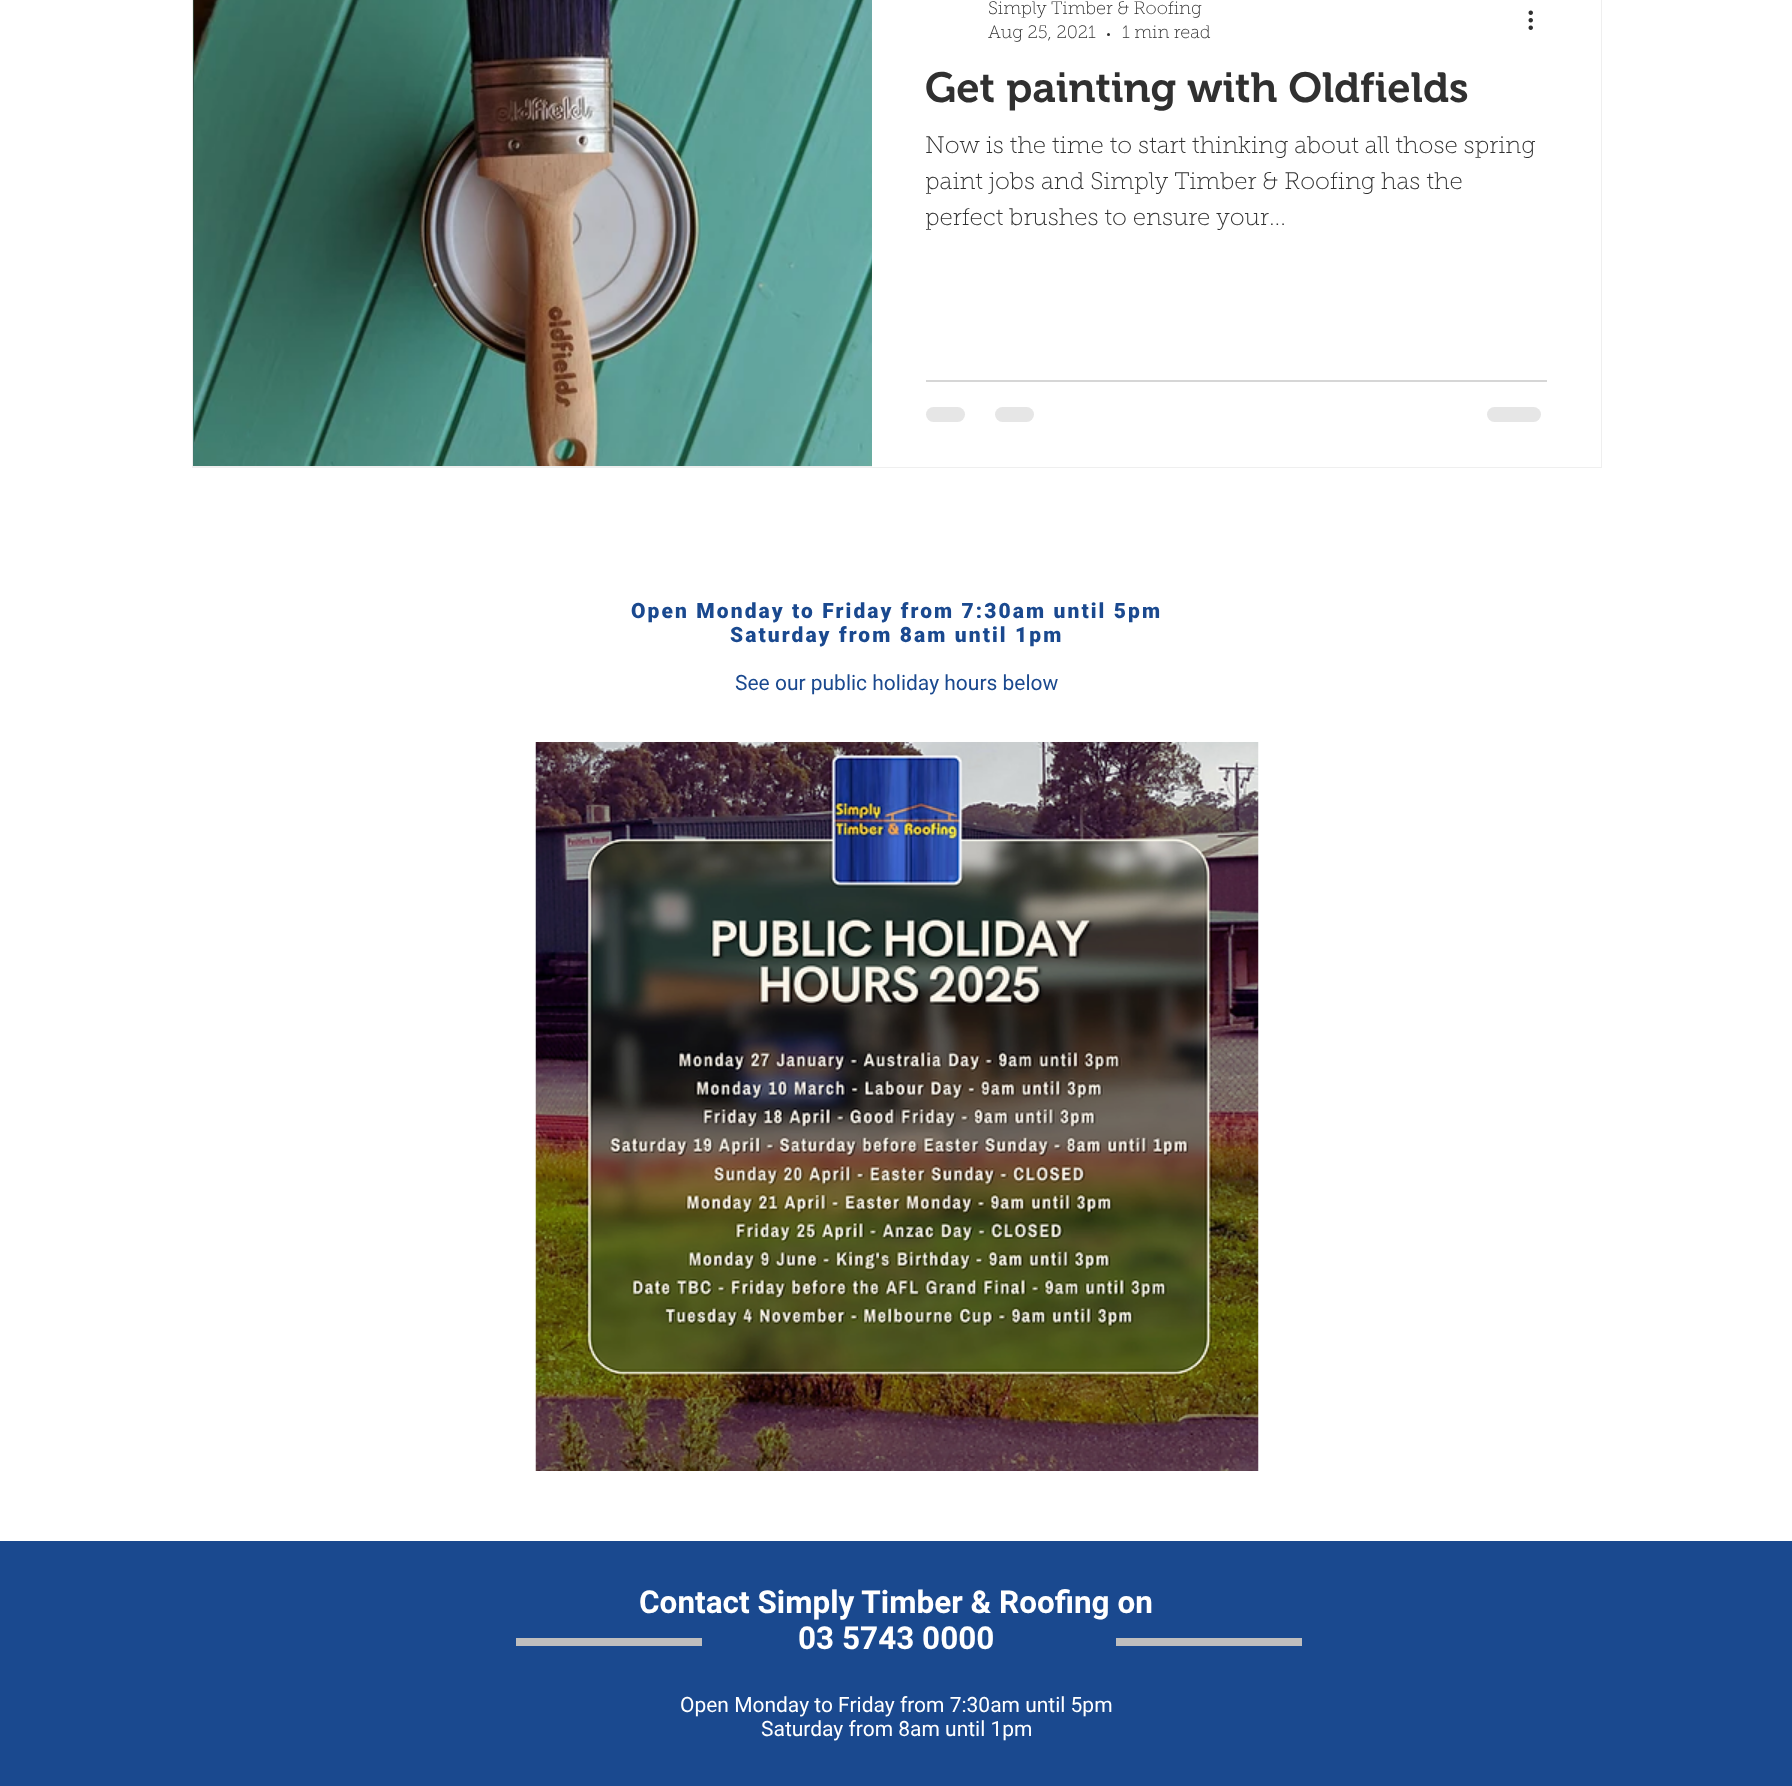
<?xml version="1.0" encoding="UTF-8"?>
<svg xmlns="http://www.w3.org/2000/svg" xmlns:xlink="http://www.w3.org/1999/xlink" width="1792" height="1786">
  <defs>
    <clipPath id="clip1"><rect x="926" y="129" width="621" height="108" /></clipPath>
  </defs>
  <rect width="100%" height="100%" fill="#ffffff" />
  <rect x="193" y="-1" width="1408" height="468" fill="none" stroke="#efefef" stroke-width="2" />
  <image x="193" y="0" width="1" height="466" xlink:href="image1.png" />
  <image x="194" y="0" width="678" height="466" xlink:href="image2.png" />
  <rect x="872" width="729" height="467" fill="#ffffff" />
  <circle cx="1108.5" cy="34.5" r="1.5" fill="#303030" />
  <image x="1528" y="10" width="5" height="20" xlink:href="image3.png" />
  <rect x="926" y="380" width="621" height="2" fill="#d6d6d6" />
  <rect x="926" y="407" width="39" height="15" rx="7.5" fill="#e6e6e6" />
  <rect x="995" y="407" width="39" height="15" rx="7.5" fill="#e6e6e6" />
  <rect x="1487" y="407" width="54" height="15" rx="7.5" fill="#e6e6e6" />
  <image x="535" y="742" width="724" height="729" xlink:href="image4.png" />
  <rect y="1541" width="1792" height="245" fill="#1a498f" />
  <rect x="516" y="1638" width="186" height="8" fill="#bfbebe" />
  <rect x="1116" y="1638" width="186" height="8" fill="#bfbebe" />
  <text x="988" y="14" style="font-family: 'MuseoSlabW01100'; font-size: 18px; font-weight: 100; fill: #303030">Simply Timber &amp; Roofing</text>
  <text x="988" y="38" style="font-family: 'MuseoSlabW01100'; font-size: 18px; font-weight: 100; fill: #303030">Aug 25, 2021</text>
  <text x="1122" y="38" style="font-family: 'MuseoSlabW01100'; font-size: 18px; font-weight: 100; fill: #303030">1 min read</text>
  <text x="925" y="102" style="font-family: 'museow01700'; font-size: 42px; font-weight: 600; fill: #303030">Get painting with Oldfields</text>
  <text x="925" y="153" style="font-family: 'MuseoSlabW01100'; font-size: 24px; font-weight: 100; fill: #303030">Now is the time to start thinking about all those spring</text>
  <g clip-path="url(#clip1)">
    <text x="925" y="189" style="font-family: 'MuseoSlabW01100'; font-size: 24px; font-weight: 100; fill: #303030">paint jobs and Simply Timber &amp; Roofing has the</text>
    <text x="925" y="225" style="font-family: 'MuseoSlabW01100'; font-size: 24px; font-weight: 100; fill: #303030">perfect brushes to ensure your...</text>
  </g>
  <text x="631" y="618" style="font-family: Roboto; font-size: 21px; font-weight: 900; letter-spacing: 2.1px; fill: #1a498f">Open Monday to Friday from 7:30am until 5pm</text>
  <text x="730" y="642" style="font-family: Roboto; font-size: 21px; font-weight: 900; letter-spacing: 2.1px; fill: #1a498f">Saturday from 8am until 1pm</text>
  <text x="735" y="690" style="font-family: Roboto; font-size: 21px; fill: #1a498f">See our public holiday hours below</text>
  <text x="639" y="1613" style="font-family: Roboto; font-size: 31.5px; font-weight: bold; fill: #ffffff">Contact Simply Timber &amp; Roofing on</text>
  <text x="798" y="1649" style="font-family: Roboto; font-size: 31.5px; font-weight: bold; fill: #ffffff">03 5743 0000</text>
  <text x="680" y="1712" style="font-family: Roboto; font-size: 21px; fill: #ffffff">Open Monday to Friday from 7:30am until 5pm</text>
  <text x="761" y="1736" style="font-family: Roboto; font-size: 21px; fill: #ffffff">Saturday from 8am until 1pm</text>
</svg>
